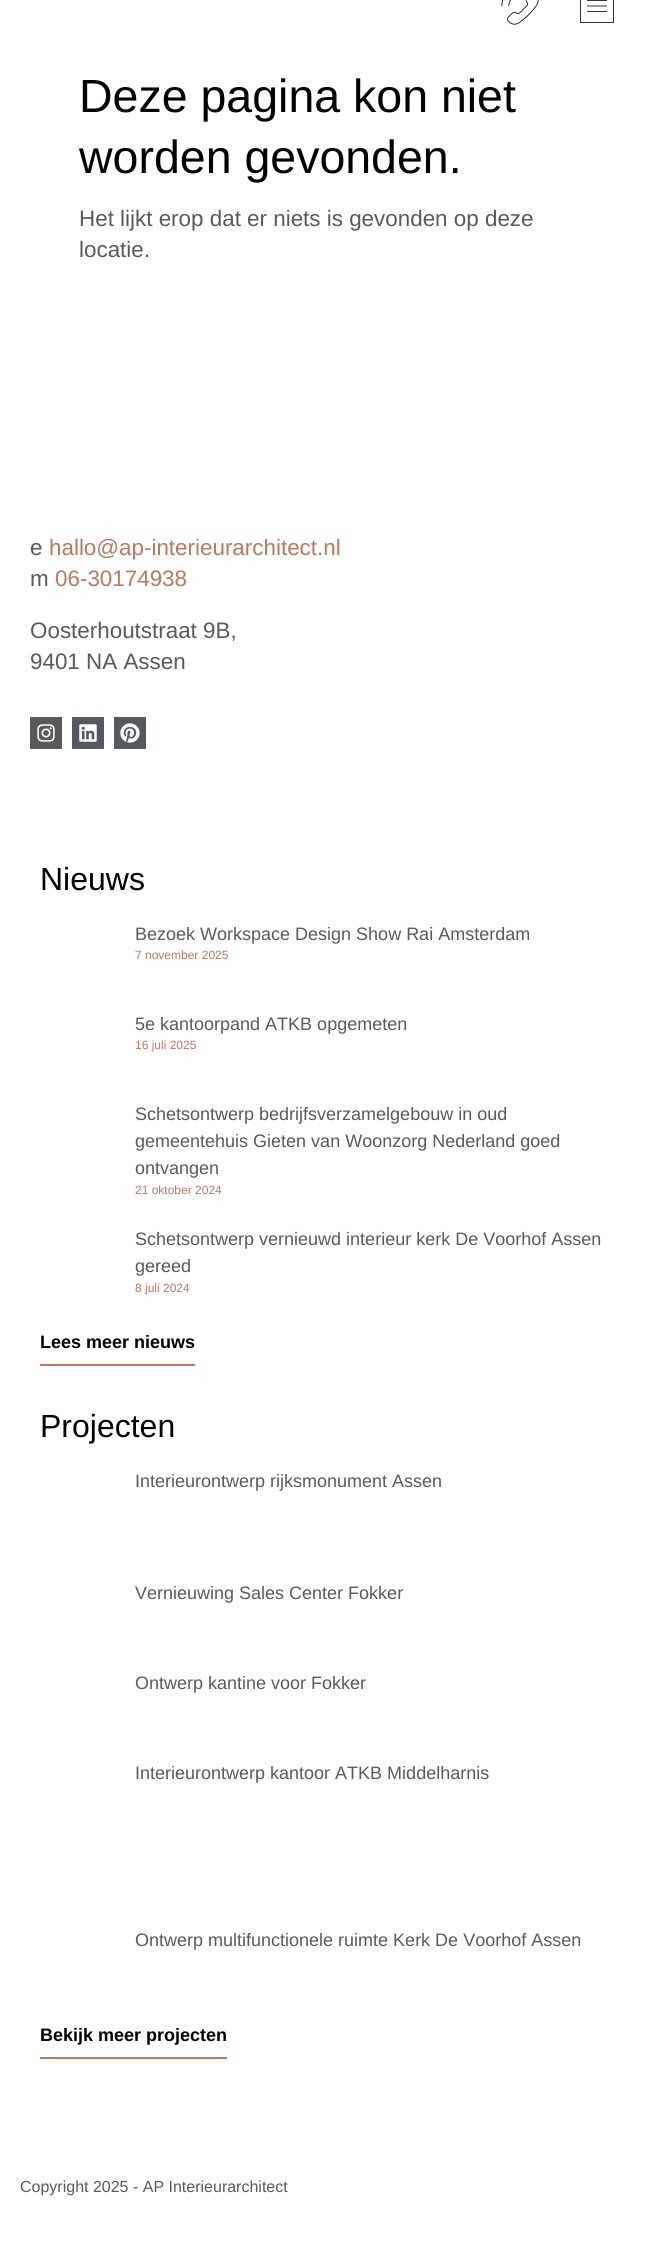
import math
import cairo

surface = cairo.ImageSurface(cairo.FORMAT_RGB24, 658, 2247)
c = cairo.Context(surface)
options = cairo.FontOptions()
options.set_hint_metrics(cairo.HINT_METRICS_OFF)
options.set_hint_style(cairo.HINT_STYLE_NONE)
c.set_font_options(options)
c.set_miter_limit(4)
def C(code):
 c.set_source_rgb(*(v / 255 for v in bytes.fromhex(code[-6:])))
def F(family, size, italic, bold):
 c.select_font_face(family, cairo.FONT_SLANT_ITALIC if italic else cairo.FONT_SLANT_NORMAL, cairo.FONT_WEIGHT_BOLD if bold else cairo.FONT_WEIGHT_NORMAL)
 c.set_font_size(size)
def T(x, y, s):
 c.move_to(x, y)
 c.show_text(s)
def R(x, y, w, h):
 c.rectangle(x, y, w, h)
 c.fill()
def I(path, x, y, w, h):
 c.save()
 c.set_source_surface(cairo.ImageSurface.create_from_png(path), x, y)
 c.rectangle(x, y, w, h)
 c.fill()
 c.restore()
C('ffffff')
c.paint()
I('1.png',501,0,38,25)
c.new_path()
c.move_to(580.5,-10.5)
c.line_to(613.5,-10.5)
c.line_to(613.5,22.5)
c.line_to(580.5,22.5)
c.close_path()
C('000000')
c.set_line_width(.8)
c.stroke()
C('333333')
R(587,0,20,1)
c.new_path()
c.move_to(587,6)
c.line_to(607,6)
C('000000')
c.stroke()
C('333333')
R(587,11,20,1)
F('Liberation Sans',46.5,0,0)
C('000000')
T(79,112,'Deze pagina kon niet')
T(79,173,'worden gevonden.')
F('Liberation Sans',22.4,0,0)
C('595959')
T(79,226,'Het lijkt erop dat er niets is gevonden op deze')
T(79,257,'locatie.')
T(30,555,'e')
C('bb7760')
T(49,555,'hallo@ap-interieurarchitect.nl')
C('595959')
T(30,586,'m')
C('bb7760')
T(55,586,'06-30174938')
C('595959')
T(30,638,'Oosterhoutstraat 9B,')
T(30,669,'9401 NA Assen')
R(30,717,32,32)
I('2.png',37,724,18,18)
C('54595f')
R(72,717,32,32)
I('3.png',79,724,18,18)
R(114,717,32,32)
I('4.png',120,723,20,20)
F('Liberation Sans',32,0,0)
C('000000')
T(40,890,'Nieuws')
F('Liberation Sans',18,0,0)
C('595959')
T(135,940,'Bezoek Workspace Design Show Rai Amsterdam')
F('Liberation Sans',12,0,0)
C('bb7760')
T(135,959,'7 november 2025')
F('Liberation Sans',18,0,0)
C('595959')
T(135,1030,'5e kantoorpand ATKB opgemeten')
F('Liberation Sans',12,0,0)
C('bb7760')
T(135,1049,'16 juli 2025')
F('Liberation Sans',18,0,0)
C('595959')
T(135,1120,'Schetsontwerp bedrijfsverzamelgebouw in oud')
T(135,1147,'gemeentehuis Gieten van Woonzorg Nederland goed')
T(135,1174,'ontvangen')
F('Liberation Sans',12,0,0)
C('bb7760')
T(135,1194,'21 oktober 2024')
F('Liberation Sans',18,0,0)
C('595959')
T(135,1245,'Schetsontwerp vernieuwd interieur kerk De Voorhof Assen')
T(135,1272,'gereed')
F('Liberation Sans',12,0,0)
C('bb7760')
T(135,1292,'8 juli 2024')
R(40,1364,155,2)
F('Liberation Sans',18,0,1)
C('000000')
T(40,1348,'Lees meer nieuws')
F('Liberation Sans',32,0,0)
T(40,1437,'Projecten')
F('Liberation Sans',18,0,0)
C('595959')
T(135,1487,'Interieurontwerp rijksmonument Assen')
T(135,1599,'Vernieuwing Sales Center Fokker')
T(135,1689,'Ontwerp kantine voor Fokker')
T(135,1779,'Interieurontwerp kantoor ATKB Middelharnis')
T(135,1946,'Ontwerp multifunctionele ruimte Kerk De Voorhof Assen')
C('bb7760')
R(40,2057,187,2)
F('Liberation Sans',18,0,1)
C('000000')
T(40,2041,'Bekijk meer projecten')
F('Liberation Sans',16,0,0)
C('595959')
T(20,2192,'Copyright 2025 - AP Interieurarchitect')
surface.write_to_png('o.png')
